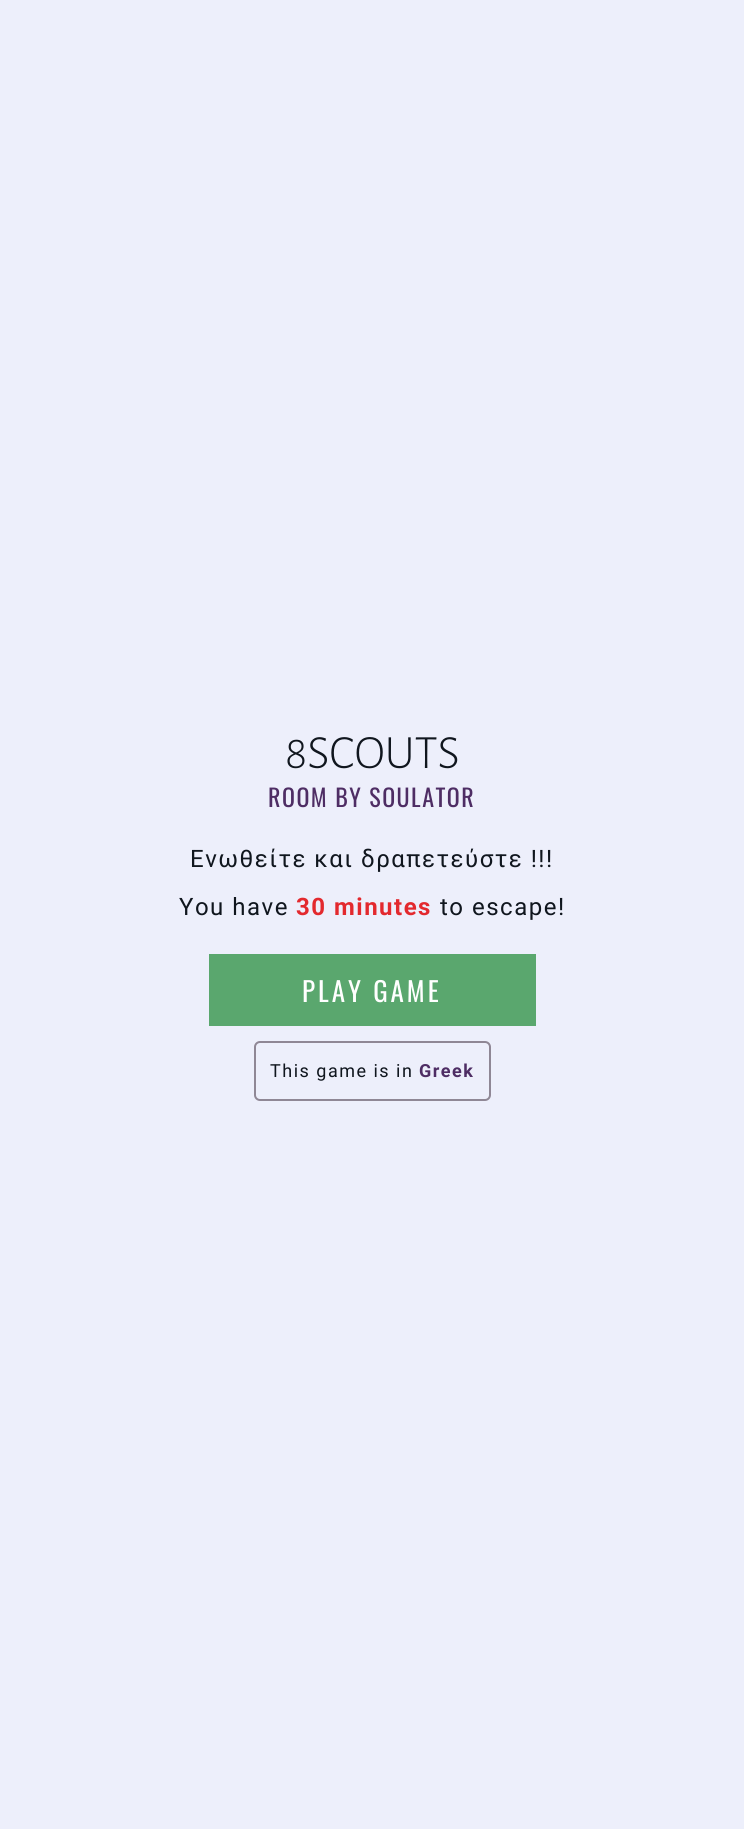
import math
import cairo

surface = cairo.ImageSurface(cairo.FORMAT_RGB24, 744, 1829)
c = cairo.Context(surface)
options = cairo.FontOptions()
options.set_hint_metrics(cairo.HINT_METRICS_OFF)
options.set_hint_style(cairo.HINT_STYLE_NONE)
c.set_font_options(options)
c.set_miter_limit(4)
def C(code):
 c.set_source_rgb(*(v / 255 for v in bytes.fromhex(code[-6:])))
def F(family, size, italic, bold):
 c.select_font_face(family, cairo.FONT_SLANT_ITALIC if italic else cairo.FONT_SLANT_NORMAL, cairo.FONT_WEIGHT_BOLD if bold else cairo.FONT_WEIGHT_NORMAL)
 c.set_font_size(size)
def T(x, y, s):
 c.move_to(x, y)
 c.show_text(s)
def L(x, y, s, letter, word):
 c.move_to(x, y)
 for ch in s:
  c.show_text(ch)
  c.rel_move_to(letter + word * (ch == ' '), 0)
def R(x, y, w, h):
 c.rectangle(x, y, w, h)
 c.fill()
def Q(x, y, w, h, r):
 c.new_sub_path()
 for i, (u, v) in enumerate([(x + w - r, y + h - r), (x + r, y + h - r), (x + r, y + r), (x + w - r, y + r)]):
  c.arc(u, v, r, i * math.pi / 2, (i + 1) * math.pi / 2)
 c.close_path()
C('edeffb')
c.paint()
F('Alegreya Sans SC Light',48,0,0)
C('10161e')
T(285,768,'8SCOUTS')
F('Oswald',24,0,0)
C('4e2d64')
L(268,807,'ROOM BY SOULATOR',1.5,0)
F('Roboto',24,0,0)
C('10161e')
L(190,867,'Ενωθείτε και δραπετεύστε !!!',1.5,0)
L(179,915,'You have',1.5,0)
F('Roboto',24,0,1)
C('e3292e')
L(296,915,'30 minutes',1.5,0)
F('Roboto',24,0,0)
C('10161e')
L(440,915,'to escape!',1.5,0)
C('5aa76e')
R(209,954,327,72)
F('Oswald',27,0,0)
C('ffffff')
L(302,1002,'PLAY GAME',3,0)
Q(255,1042,235,58,5)
C('8f8795')
c.stroke()
F('Roboto',18,0,0)
C('10161e')
L(270,1077,'This game is in',1.5,0)
F('Roboto',18,0,1)
C('4e2d64')
L(419,1077,'Greek',1.5,0)
surface.write_to_png('o.png')
